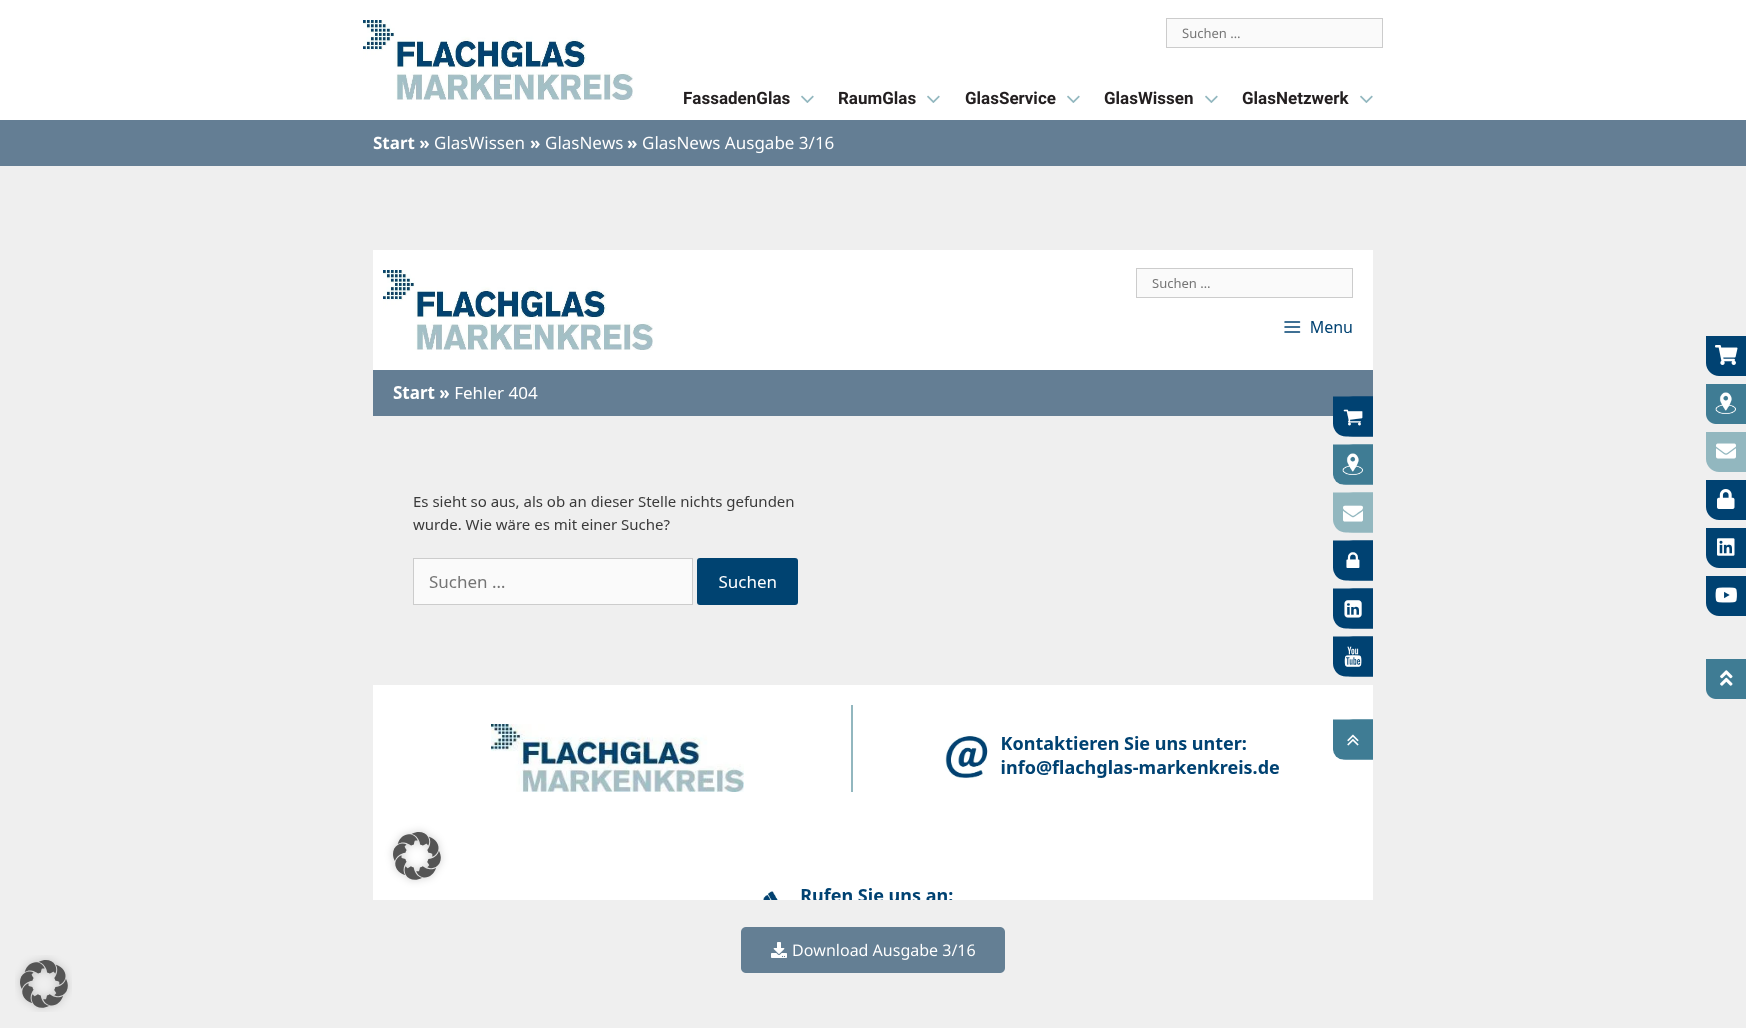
import math
import cairo

surface = cairo.ImageSurface(cairo.FORMAT_RGB24, 1746, 1028)
c = cairo.Context(surface)
options = cairo.FontOptions()
options.set_hint_metrics(cairo.HINT_METRICS_OFF)
options.set_hint_style(cairo.HINT_STYLE_NONE)
c.set_font_options(options)
c.set_miter_limit(4)
def C(code):
 c.set_source_rgb(*(v / 255 for v in bytes.fromhex(code[-6:])))
def F(family, size, italic, bold):
 c.select_font_face(family, cairo.FONT_SLANT_ITALIC if italic else cairo.FONT_SLANT_NORMAL, cairo.FONT_WEIGHT_BOLD if bold else cairo.FONT_WEIGHT_NORMAL)
 c.set_font_size(size)
def T(x, y, s):
 c.move_to(x, y)
 c.show_text(s)
def R(x, y, w, h):
 c.rectangle(x, y, w, h)
 c.fill()
def Q(x, y, w, h, r):
 c.new_sub_path()
 for i, (u, v) in enumerate([(x + w - r, y + h - r), (x + r, y + h - r), (x + r, y + r), (x + w - r, y + r)]):
  c.arc(u, v, r, i * math.pi / 2, (i + 1) * math.pi / 2)
 c.close_path()
def I(path, x, y, w, h):
 c.save()
 c.set_source_surface(cairo.ImageSurface.create_from_png(path), x, y)
 c.rectangle(x, y, w, h)
 c.fill()
 c.restore()
C('efefef')
c.paint()
C('ffffff')
R(0,0,1746,120)
C('fafafa')
c.rectangle(1166.5,18.5,216,29)
c.fill_preserve()
C('cccccc')
c.set_line_width(1)
c.stroke()
F('Noto Sans',13,0,0)
C('757575')
T(1182,38,'Suchen …')
I('1.png',363,20,270,80)
F('Roboto',17,0,1)
C('231f20')
T(683,104,'FassadenGlas')
I('2.png',801,95,13,8)
T(838,104,'RaumGlas')
I('2.png',927,95,13,8)
T(965,104,'GlasService')
I('2.png',1067,95,13,8)
T(1104,104,'GlasWissen')
I('2.png',1205,95,13,8)
T(1242,104,'GlasNetzwerk')
I('2.png',1360,95,13,8)
C('647e94')
R(0,120,1746,46)
F('Noto Sans',17,0,1)
C('ffffff')
T(373,149,'Start »')
F('Noto Sans',17,0,0)
T(434,149,'GlasWissen')
F('Noto Sans',17,0,1)
T(530,149,'»')
F('Noto Sans',17,0,0)
T(545,149,'GlasNews')
F('Noto Sans',17,0,1)
T(627,149,'»')
F('Noto Sans',17,0,0)
T(642,149,'GlasNews Ausgabe 3/16')
C('004272')
c.new_path()
c.move_to(1706,336)
c.line_to(1746,336)
c.line_to(1746,376)
c.line_to(1719,376)
c.curve_to(1712,376,1706,370,1706,363)
c.close_path()
c.fill()
I('3.png',1715,345,23,20)
C('3f7c94')
c.new_path()
c.move_to(1726,384)
c.line_to(1746,384)
c.curve_to(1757,384,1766,393,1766,404)
c.curve_to(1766,415,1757,424,1746,424)
c.line_to(1716,424)
c.curve_to(1710.5,424,1706,419.5,1706,414)
c.line_to(1706,404)
c.curve_to(1706,393,1715,384,1726,384)
c.close_path()
c.fill()
c.new_path()
c.move_to(1706,384)
c.line_to(1746,384)
c.line_to(1746,424)
c.line_to(1719,424)
c.curve_to(1712,424,1706,418,1706,411)
c.close_path()
c.fill()
I('4.png',1715,392,21,22)
C('92b7bf')
c.new_path()
c.move_to(1706,432)
c.line_to(1746,432)
c.line_to(1746,472)
c.line_to(1719,472)
c.curve_to(1712,472,1706,466,1706,459)
c.close_path()
c.fill()
I('5.png',1716,443,20,16)
C('004272')
c.new_path()
c.move_to(1706,480)
c.line_to(1746,480)
c.line_to(1746,520)
c.line_to(1719,520)
c.curve_to(1712,520,1706,514,1706,507)
c.close_path()
c.fill()
I('6.png',1717,489,18,20)
c.new_path()
c.move_to(1706,528)
c.line_to(1746,528)
c.line_to(1746,568)
c.line_to(1719,568)
c.curve_to(1712,568,1706,562,1706,555)
c.close_path()
c.fill()
I('7.png',1717,538,18,18)
c.new_path()
c.move_to(1706,576)
c.line_to(1746,576)
c.line_to(1746,616)
c.line_to(1719,616)
c.curve_to(1712,616,1706,610,1706,603)
c.close_path()
c.fill()
I('8.png',1715,587,22,16)
C('3f7c94')
c.new_path()
c.move_to(1726,659)
c.line_to(1746,659)
c.curve_to(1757,659,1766,668,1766,679)
c.curve_to(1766,690,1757,699,1746,699)
c.line_to(1716,699)
c.curve_to(1710.5,699,1706,694.5,1706,689)
c.line_to(1706,679)
c.curve_to(1706,668,1715,659,1726,659)
c.close_path()
c.fill()
c.new_path()
c.move_to(1706,659)
c.line_to(1746,659)
c.line_to(1746,699)
c.line_to(1719,699)
c.curve_to(1712,699,1706,693,1706,686)
c.close_path()
c.fill()
I('9.png',1720,670,13,16)
I('10.png',373,250,1000,650)
C('647f94')
Q(741,927,264,46,5)
c.fill()
I('11.png',771,942,16,16)
F('Noto Sans',16,0,0)
C('ffffff')
T(792,956,'Download Ausgabe 3/16')
I('12.png',15,955,57,57)
surface.write_to_png('o.png')
